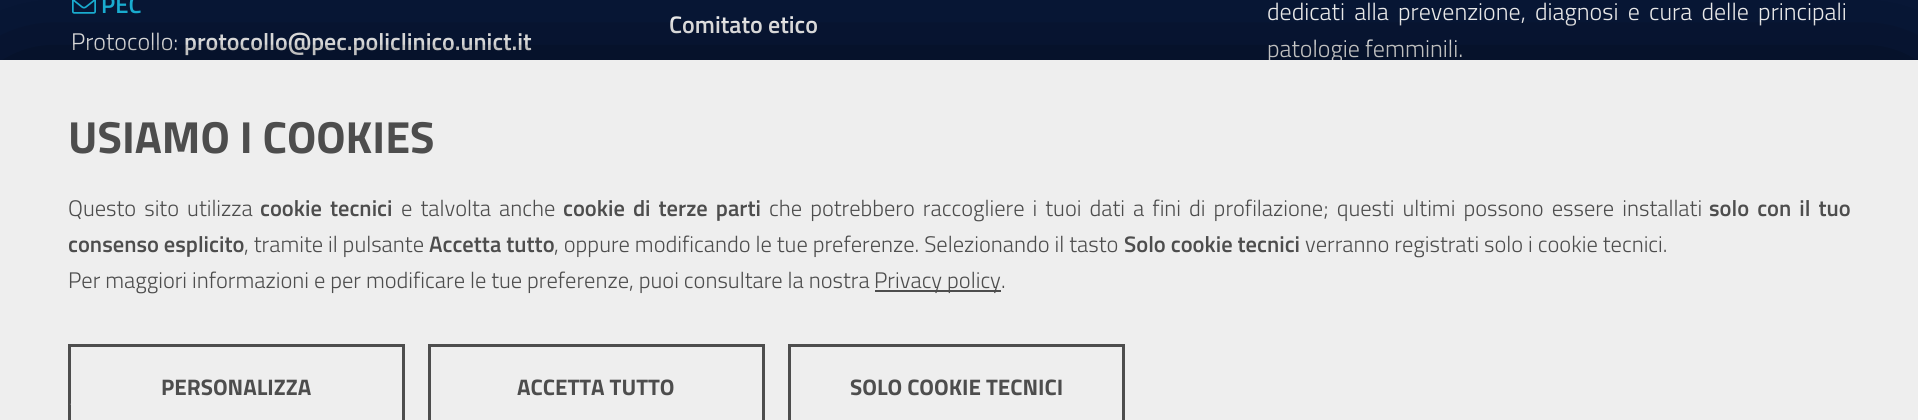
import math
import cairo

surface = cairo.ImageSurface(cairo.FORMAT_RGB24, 1918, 420)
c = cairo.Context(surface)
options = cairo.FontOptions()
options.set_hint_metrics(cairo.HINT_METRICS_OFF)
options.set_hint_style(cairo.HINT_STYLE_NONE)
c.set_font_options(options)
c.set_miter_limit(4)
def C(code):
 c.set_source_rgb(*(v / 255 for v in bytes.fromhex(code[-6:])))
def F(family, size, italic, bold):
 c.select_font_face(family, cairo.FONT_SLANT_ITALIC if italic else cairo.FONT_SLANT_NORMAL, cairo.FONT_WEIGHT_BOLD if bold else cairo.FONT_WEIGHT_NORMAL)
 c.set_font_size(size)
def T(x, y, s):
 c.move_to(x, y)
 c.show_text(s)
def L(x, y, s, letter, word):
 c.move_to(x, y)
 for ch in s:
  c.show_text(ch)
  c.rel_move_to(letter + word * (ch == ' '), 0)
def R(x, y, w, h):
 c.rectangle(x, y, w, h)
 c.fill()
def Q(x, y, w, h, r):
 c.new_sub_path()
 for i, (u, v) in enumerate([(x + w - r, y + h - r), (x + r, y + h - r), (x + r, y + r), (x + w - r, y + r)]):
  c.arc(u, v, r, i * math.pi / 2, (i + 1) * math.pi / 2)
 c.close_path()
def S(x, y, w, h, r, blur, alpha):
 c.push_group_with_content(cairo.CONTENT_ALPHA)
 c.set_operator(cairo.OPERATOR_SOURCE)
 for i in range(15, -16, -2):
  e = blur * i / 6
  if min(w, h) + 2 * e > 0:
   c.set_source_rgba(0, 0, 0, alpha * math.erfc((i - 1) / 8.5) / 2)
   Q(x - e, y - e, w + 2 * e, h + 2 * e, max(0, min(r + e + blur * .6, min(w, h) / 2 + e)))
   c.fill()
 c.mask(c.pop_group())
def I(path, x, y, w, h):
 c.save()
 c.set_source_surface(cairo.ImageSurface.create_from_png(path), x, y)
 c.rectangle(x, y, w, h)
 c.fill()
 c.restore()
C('081839')
c.paint()
I('1.png',72,0,24,14)
F('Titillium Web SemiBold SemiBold',24,0,0)
C('1bbde4')
T(101,13,'PEC')
F('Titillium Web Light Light',24,0,0)
C('ffffff')
T(71,50,'Protocollo:')
F('Titillium Web SemiBold SemiBold',24,0,0)
T(184,50,'protocollo@pec.policlinico.unict.it')
T(669,33,'Comitato etico')
F('Titillium Web Light Light',24,0,0)
L(1267,20,'dedicati alla prevenzione, diagnosi e cura delle principali',0,4)
T(1267,57,'patologie femminili.')
C('000000')
S(14,101,1891,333,0,67.5,1)
C('eeeeee')
R(0,60,1918,360)
F('Titillium Web',45,0,1)
C('4d4d4d')
T(68,153,'USIAMO I COOKIES')
F('Titillium Web Light Light',22.5,0,0)
L(68,216,'Questo sito utilizza',0,3.1)
F('Titillium Web SemiBold SemiBold',22.5,0,0)
L(260,216,'cookie tecnici',0,3.1)
F('Titillium Web Light Light',22.5,0,0)
L(401,216,'e talvolta anche',0,3.1)
F('Titillium Web SemiBold SemiBold',22.5,0,0)
L(563,216,'cookie di terze parti',0,3.1)
F('Titillium Web Light Light',22.5,0,0)
L(769,216,'che potrebbero raccogliere i tuoi dati a fini di profilazione; questi ultimi possono essere installati',0,3.1)
F('Titillium Web SemiBold SemiBold',22.5,0,0)
L(1709,216,'solo con il tuo',0,3.1)
T(68,252,'consenso esplicito')
F('Titillium Web Light Light',22.5,0,0)
T(244,252,', tramite il pulsante')
F('Titillium Web SemiBold SemiBold',22.5,0,0)
T(429,252,'Accetta tutto')
F('Titillium Web Light Light',22.5,0,0)
T(554,252,', oppure modificando le tue preferenze. Selezionando il tasto')
F('Titillium Web SemiBold SemiBold',22.5,0,0)
T(1124,252,'Solo cookie tecnici')
F('Titillium Web Light Light',22.5,0,0)
T(1305,252,'verranno registrati solo i cookie tecnici.')
T(68,288,'Per maggiori informazioni e per modificare le tue preferenze, puoi consultare la nostra')
R(875,290,126,2)
T(874,288,'Privacy policy.')
c.rectangle(69.5,345.5,334,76)
c.set_line_width(3)
c.stroke()
F('Titillium Web',22.5,0,1)
T(161,395,'PERSONALIZZA')
c.rectangle(429.5,345.5,334,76)
c.stroke()
T(517,395,'ACCETTA TUTTO')
c.rectangle(789.5,345.5,334,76)
c.stroke()
T(850,395,'SOLO COOKIE TECNICI')
c.new_path()
c.move_to(71.5,403)
c.line_to(75.5,406.5)
c.line_to(83,397)
C('eeeeee')
c.set_line_width(3.1)
c.stroke()
surface.write_to_png('o.png')
